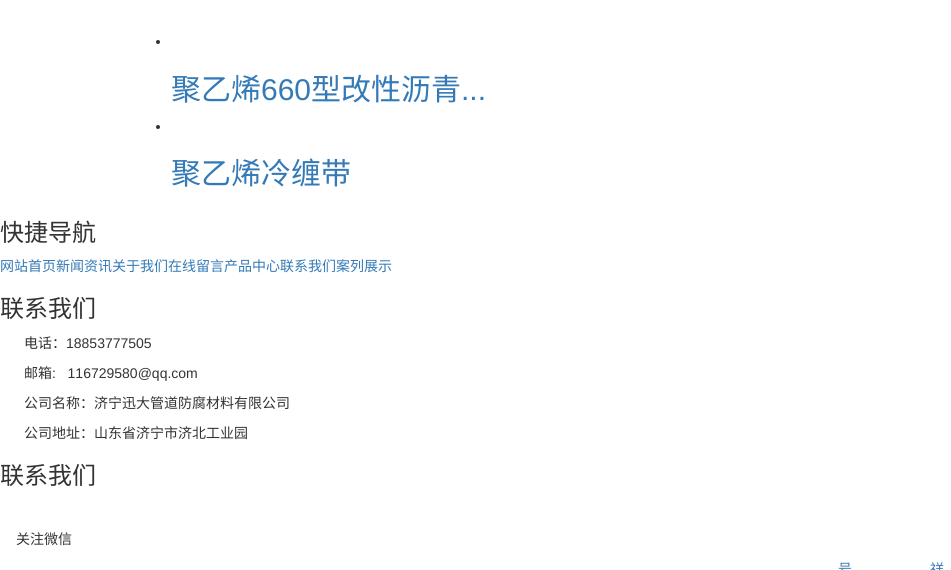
import math
import cairo

surface = cairo.ImageSurface(cairo.FORMAT_RGB24, 951, 570)
c = cairo.Context(surface)
options = cairo.FontOptions()
options.set_hint_metrics(cairo.HINT_METRICS_OFF)
options.set_hint_style(cairo.HINT_STYLE_NONE)
c.set_font_options(options)
c.set_miter_limit(4)
def C(code):
 c.set_source_rgb(*(v / 255 for v in bytes.fromhex(code[-6:])))
def F(family, size, italic, bold):
 c.select_font_face(family, cairo.FONT_SLANT_ITALIC if italic else cairo.FONT_SLANT_NORMAL, cairo.FONT_WEIGHT_BOLD if bold else cairo.FONT_WEIGHT_NORMAL)
 c.set_font_size(size)
def T(x, y, s):
 c.move_to(x, y)
 c.show_text(s)
C('ffffff')
c.paint()
C('333333')
c.arc(158,42,2,0,2 * math.pi)
c.fill()
F('Noto Sans CJK SC',30,0,0)
C('337ab7')
T(171,100,'聚乙烯')
F('Liberation Sans',30,0,0)
T(261,100,'660')
F('Noto Sans CJK SC',30,0,0)
T(311,100,'型改性沥青')
F('Liberation Sans',30,0,0)
T(461,100,'...')
C('333333')
c.new_path()
c.arc(158,127,2,0,2 * math.pi)
c.fill()
F('Noto Sans CJK SC',30,0,0)
C('337ab7')
T(171,184,'聚乙烯冷缠带')
F('Noto Sans CJK SC',24,0,0)
C('333333')
T(0,241,'快捷导航')
F('Noto Sans CJK SC',14,0,0)
C('337ab7')
T(0,271,'网站首页新闻资讯关于我们在线留言产品中心联系我们案列展示')
F('Noto Sans CJK SC',24,0,0)
C('333333')
T(0,317,'联系我们')
F('Noto Sans CJK SC',14,0,0)
T(24,348,'电话：')
F('Liberation Sans',14,0,0)
T(66,348,'18853777505')
F('Noto Sans CJK SC',14,0,0)
T(24,378,'邮箱')
F('Liberation Sans',14,0,0)
T(52,378,':   116729580@qq.com')
F('Noto Sans CJK SC',14,0,0)
T(24,408,'公司名称：济宁迅大管道防腐材料有限公司')
T(24,438,'公司地址：山东省济宁市济北工业园')
F('Noto Sans CJK SC',24,0,0)
T(0,484,'联系我们')
F('Noto Sans CJK SC',14,0,0)
T(16,544,'关注微信')
C('337ab7')
T(838,574,'号')
T(930,574,'祥')
surface.write_to_png('o.png')
